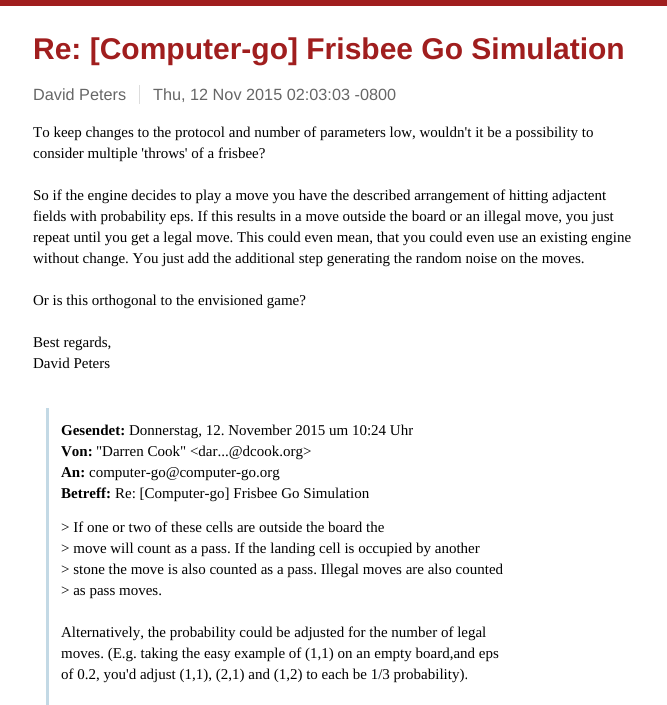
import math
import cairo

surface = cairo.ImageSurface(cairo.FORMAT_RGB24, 667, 705)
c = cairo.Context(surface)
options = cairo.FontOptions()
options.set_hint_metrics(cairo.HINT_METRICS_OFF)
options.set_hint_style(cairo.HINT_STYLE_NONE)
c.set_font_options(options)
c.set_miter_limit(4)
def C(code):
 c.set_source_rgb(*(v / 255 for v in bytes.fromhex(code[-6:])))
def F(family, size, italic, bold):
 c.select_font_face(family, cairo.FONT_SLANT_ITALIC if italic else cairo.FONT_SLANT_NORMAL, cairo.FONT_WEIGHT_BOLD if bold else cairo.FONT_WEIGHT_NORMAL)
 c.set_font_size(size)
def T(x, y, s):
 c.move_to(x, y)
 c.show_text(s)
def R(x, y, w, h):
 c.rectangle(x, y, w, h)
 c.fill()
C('ffffff')
c.paint()
C('a01e1e')
R(0,0,667,6)
F('Liberation Sans',30,0,1)
T(33,59,'Re: [Computer-go] Frisbee Go Simulation')
F('Liberation Sans',16.25,0,0)
C('666666')
T(33,100,'David Peters')
C('dddddd')
R(139,85,1,19)
C('666666')
T(153,100,'Thu, 12 Nov 2015 02:03:03 -0800')
F('Liberation Serif',15,0,0)
C('000000')
T(33,137,'To keep changes to the protocol and number of parameters low, wouldn\'t it be a possibility to')
T(33,158,'consider multiple \'throws\' of a frisbee?')
T(33,200,'So if the engine decides to play a move you have the described arrangement of hitting adjactent')
T(33,221,'fields with probability eps. If this results in a move outside the board or an illegal move, you just')
T(33,242,'repeat until you get a legal move. This could even mean, that you could even use an existing engine')
T(33,263,'without change. You just add the additional step generating the random noise on the moves.')
T(33,305,'Or is this orthogonal to the envisioned game?')
T(33,347,'Best regards,')
T(33,368,'David Peters')
C('c3d9e5')
R(46,408,3,297)
F('Liberation Serif',15,0,1)
C('000000')
T(61,435,'Gesendet:')
F('Liberation Serif',15,0,0)
T(129,435,'Donnerstag, 12. November 2015 um 10:24 Uhr')
F('Liberation Serif',15,0,1)
T(61,456,'Von:')
F('Liberation Serif',15,0,0)
T(96,456,'"Darren Cook" <dar...@dcook.org>')
F('Liberation Serif',15,0,1)
T(61,477,'An:')
F('Liberation Serif',15,0,0)
T(89,477,'computer-go@computer-go.org')
F('Liberation Serif',15,0,1)
T(61,498,'Betreff:')
F('Liberation Serif',15,0,0)
T(115,498,'Re: [Computer-go] Frisbee Go Simulation')
T(61,532,'> If one or two of these cells are outside the board the')
T(61,553,'> move will count as a pass. If the landing cell is occupied by another')
T(61,574,'> stone the move is also counted as a pass. Illegal moves are also counted')
T(61,595,'> as pass moves.')
T(61,637,'Alternatively, the probability could be adjusted for the number of legal')
T(61,658,'moves. (E.g. taking the easy example of (1,1) on an empty board,and eps')
T(61,679,'of 0.2, you\'d adjust (1,1), (2,1) and (1,2) to each be 1/3 probability).')
surface.write_to_png('o.png')
